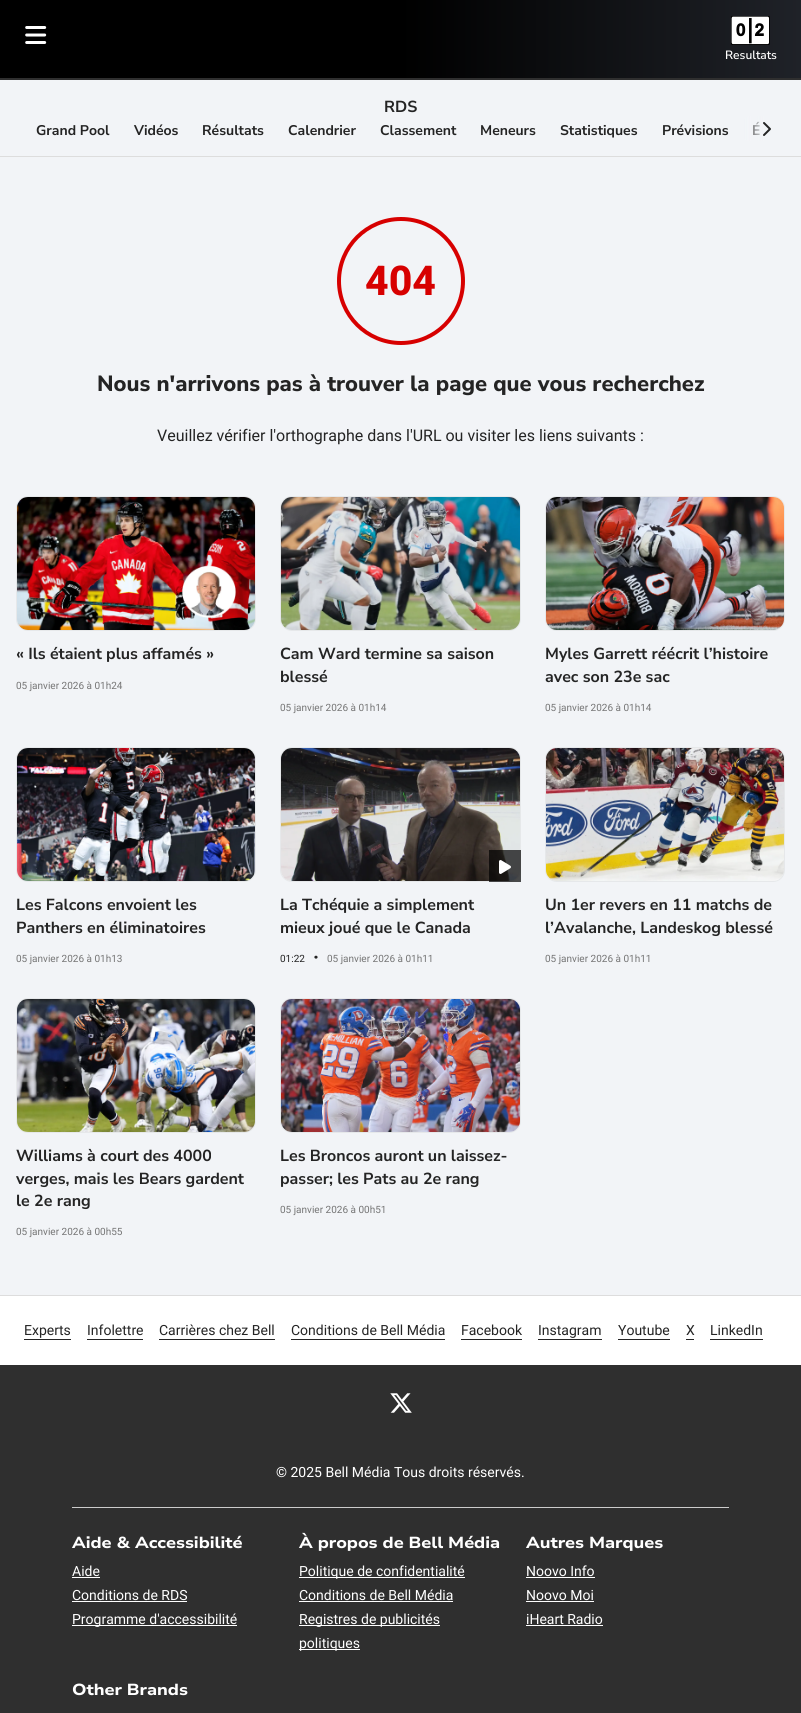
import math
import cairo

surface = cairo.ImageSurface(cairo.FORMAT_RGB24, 801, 1713)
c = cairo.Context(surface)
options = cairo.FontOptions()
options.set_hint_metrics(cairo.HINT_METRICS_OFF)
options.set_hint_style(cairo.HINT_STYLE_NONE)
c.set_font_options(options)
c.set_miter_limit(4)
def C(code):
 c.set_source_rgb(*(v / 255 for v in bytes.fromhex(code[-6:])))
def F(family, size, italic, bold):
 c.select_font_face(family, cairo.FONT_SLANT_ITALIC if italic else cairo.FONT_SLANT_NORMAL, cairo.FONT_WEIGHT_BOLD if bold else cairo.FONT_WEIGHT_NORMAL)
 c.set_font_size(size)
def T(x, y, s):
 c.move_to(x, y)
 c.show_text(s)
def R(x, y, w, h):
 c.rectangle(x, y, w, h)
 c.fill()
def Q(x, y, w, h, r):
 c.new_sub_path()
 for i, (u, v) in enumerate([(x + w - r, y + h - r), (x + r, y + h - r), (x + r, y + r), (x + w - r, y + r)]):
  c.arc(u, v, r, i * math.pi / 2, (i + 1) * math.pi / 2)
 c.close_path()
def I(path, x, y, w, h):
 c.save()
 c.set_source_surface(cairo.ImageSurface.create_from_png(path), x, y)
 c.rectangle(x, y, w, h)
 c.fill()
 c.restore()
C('f2f4f7')
c.paint()
gradient = cairo.LinearGradient(0,39,801,39)
gradient.add_color_stop_rgba(.5,0,0,0,1)
gradient.add_color_stop_rgba(1,0.122,0.133,0.157,1)
c.set_source(gradient)
R(0,0,801,78)
C('2f2f2f')
R(0,78,801,2)
I('1.png',25,26,22,18)
I('2.png',731,16,39,29)
F('Nunito Sans SemiBold',12,0,0)
C('ffffff')
T(725,59,'Resultats')
F('Nunito Sans',16,0,1)
C('242424')
T(384,112,'RDS')
F('Nunito Sans',14,0,1)
T(36,135,'Grand Pool')
T(134,135,'Vidéos')
T(202,135,'Résultats')
T(288,135,'Calendrier')
T(380,135,'Classement')
T(480,135,'Meneurs')
T(560,135,'Statistiques')
T(662,135,'Prévisions')
T(752,135,'É')
c.save()
c.rectangle(12,116,777,25)
c.clip()
gradient = cairo.LinearGradient(790,129,742,129)
gradient.add_color_stop_rgba(.5,0.949,0.957,0.969,1)
gradient.add_color_stop_rgba(1,0.949,0.957,0.969,0)
c.set_source(gradient)
Q(742,116,48,25,8)
c.fill()
c.restore()
I('3.png',763,122,8,14)
C('dddddd')
R(0,156,801,1)
c.arc(401,281,62,0,2 * math.pi)
C('d70000')
c.set_line_width(4)
c.stroke()
F('Roboto ExtraBold',41,0,0)
T(365,295,'404')
F('Nunito Sans ExtraBold',22,0,0)
C('242424')
T(97,391,'Nous n\'arrivons pas à trouver la page que vous recherchez')
F('Roboto',16,0,0)
T(157,441,'Veuillez vérifier l\'orthographe dans l\'URL ou visiter les liens suivants :')
Q(16.5,496.5,239,134,11.5)
C('e6e8ea')
c.set_line_width(1)
c.stroke()
I('4.png',17,497,238,133)
F('Nunito Sans',16,0,1)
C('242424')
T(16,659,'« Ils étaient plus affamés »')
F('Roboto',10,0,0)
C('757575')
T(16,689,'05 janvier 2026 à 01h24')
Q(280.5,496.5,240,134,11.5)
C('e6e8ea')
c.stroke()
I('5.png',281,497,239,133)
F('Nunito Sans',16,0,1)
C('242424')
T(280,659,'Cam Ward termine sa saison')
T(280,682,'blessé')
F('Roboto',10,0,0)
C('757575')
T(280,711,'05 janvier 2026 à 01h14')
Q(545.5,496.5,239,134,11.5)
C('e6e8ea')
c.stroke()
I('6.png',546,497,238,133)
F('Nunito Sans',16,0,1)
C('242424')
T(545,659,'Myles Garrett réécrit l’histoire')
T(545,682,'avec son 23e sac')
F('Roboto',10,0,0)
C('757575')
T(545,711,'05 janvier 2026 à 01h14')
Q(16.5,747.5,239,134,11.5)
C('e6e8ea')
c.stroke()
I('7.png',17,748,238,133)
F('Nunito Sans',16,0,1)
C('242424')
T(16,910,'Les Falcons envoient les')
T(16,933,'Panthers en éliminatoires')
F('Roboto',10,0,0)
C('757575')
T(16,962,'05 janvier 2026 à 01h13')
Q(280.5,747.5,240,134,11.5)
C('e6e8ea')
c.stroke()
I('8.png',281,748,239,133)
c.set_source_rgba(0,0,0,0.7)
R(489,850,32,32)
I('9.png',499,860,12,14)
F('Nunito Sans',16,0,1)
C('242424')
T(280,910,'La Tchéquie a simplement')
T(280,933,'mieux joué que le Canada')
F('Roboto',10,0,0)
T(280,962,'01:22')
F('Roboto',20,0,1)
T(313,964,'·')
F('Roboto',10,0,0)
C('757575')
T(327,962,'05 janvier 2026 à 01h11')
Q(545.5,747.5,239,134,11.5)
C('e6e8ea')
c.stroke()
I('10.png',546,748,238,133)
F('Nunito Sans',16,0,1)
C('242424')
T(545,910,'Un 1er revers en 11 matchs de')
T(545,933,'l’Avalanche, Landeskog blessé')
F('Roboto',10,0,0)
C('757575')
T(545,962,'05 janvier 2026 à 01h11')
Q(16.5,998.5,239,134,11.5)
C('e6e8ea')
c.stroke()
I('11.png',17,999,238,133)
F('Nunito Sans',16,0,1)
C('242424')
T(16,1161,'Williams à court des 4000')
T(16,1184,'verges, mais les Bears gardent')
T(16,1206,'le 2e rang')
F('Roboto',10,0,0)
C('757575')
T(16,1235,'05 janvier 2026 à 00h55')
Q(280.5,998.5,240,134,11.5)
C('e6e8ea')
c.stroke()
I('12.png',281,999,239,133)
F('Nunito Sans',16,0,1)
C('242424')
T(280,1161,'Les Broncos auront un laissez-')
T(280,1184,'passer; les Pats au 2e rang')
F('Roboto',10,0,0)
C('757575')
T(280,1213,'05 janvier 2026 à 00h51')
C('2f2f2f')
R(0,1365,801,348)
C('ffffff')
R(0,1296,801,69)
C('dddddd')
R(0,1295,801,1)
F('Roboto',14,0,0)
C('242424')
T(24,1335,'Experts')
R(24,1339,47,1)
T(87,1335,'Infolettre')
R(87,1339,56,1)
T(159,1335,'Carrières chez Bell')
R(159,1339,116,1)
T(291,1335,'Conditions de Bell Média')
R(291,1339,154,1)
T(461,1335,'Facebook')
R(461,1339,61,1)
T(538,1335,'Instagram')
R(538,1339,64,1)
T(618,1335,'Youtube')
R(618,1339,52,1)
T(686,1335,'X')
R(686,1339,8,1)
T(710,1335,'LinkedIn')
R(710,1339,53,1)
C('cccccc')
R(72,1507,657,1)
I('13.png',390,1393,22,20)
C('ffffff')
T(276,1477,'© 2025 Bell Média Tous droits réservés.')
F('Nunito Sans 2 ExtraBold',16,0,0)
T(72,1548,'Aide & Accessibilité')
F('Roboto',14,0,0)
T(72,1576,'Aide')
R(72,1577,28,1)
T(72,1600,'Conditions de RDS')
R(72,1601,115,1)
R(72,1625,165,1)
T(72,1624,'Programme d\'accessibilité')
F('Nunito Sans 2 ExtraBold',16,0,0)
T(299,1548,'À propos de Bell Média')
R(299,1577,166,1)
F('Roboto',14,0,0)
T(299,1576,'Politique de confidentialité')
T(299,1600,'Conditions de Bell Média')
R(299,1601,154,1)
R(299,1625,141,1)
T(299,1624,'Registres de publicités')
R(299,1649,61,1)
T(299,1648,'politiques')
F('Nunito Sans 2 ExtraBold',16,0,0)
T(526,1548,'Autres Marques')
F('Roboto',14,0,0)
T(526,1576,'Noovo Info')
R(526,1577,69,1)
T(526,1600,'Noovo Moi')
R(526,1601,68,1)
T(526,1624,'iHeart Radio')
R(526,1625,77,1)
F('Nunito Sans 2 ExtraBold',16,0,0)
T(72,1695,'Other Brands')
surface.write_to_png('o.png')
